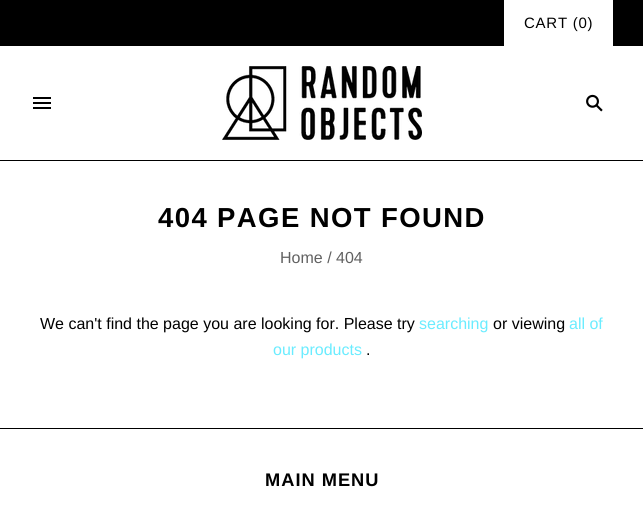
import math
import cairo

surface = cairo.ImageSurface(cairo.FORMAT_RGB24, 643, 505)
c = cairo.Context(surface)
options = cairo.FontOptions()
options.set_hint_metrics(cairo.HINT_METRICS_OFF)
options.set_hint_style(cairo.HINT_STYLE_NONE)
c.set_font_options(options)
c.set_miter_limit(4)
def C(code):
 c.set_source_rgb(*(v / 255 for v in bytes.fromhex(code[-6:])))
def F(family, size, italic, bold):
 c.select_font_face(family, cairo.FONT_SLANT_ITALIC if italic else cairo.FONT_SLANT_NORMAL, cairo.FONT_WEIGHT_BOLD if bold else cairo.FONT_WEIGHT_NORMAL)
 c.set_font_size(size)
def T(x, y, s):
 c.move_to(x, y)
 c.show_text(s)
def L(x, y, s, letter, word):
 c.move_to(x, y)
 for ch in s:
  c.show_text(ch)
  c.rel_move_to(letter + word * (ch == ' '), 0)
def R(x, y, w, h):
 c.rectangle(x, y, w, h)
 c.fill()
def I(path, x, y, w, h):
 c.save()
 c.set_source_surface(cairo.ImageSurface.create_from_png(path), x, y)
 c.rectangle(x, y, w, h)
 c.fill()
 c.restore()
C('ffffff')
c.paint()
C('000000')
R(0,160,643,1)
R(0,0,643,46)
C('ffffff')
R(504,0,109,46)
F('Liberation Sans',15,0,0)
C('000000')
L(524,28,'CART (0)',.75,0)
I('1.png',33,97,18,12)
I('2.png',222,66,200,74)
I('3.png',586,94,17,18)
F('Liberation Sans',27.5,0,1)
L(158,227,'404 PAGE NOT FOUND',1.4,0)
F('Liberation Sans',16,0,0)
C('616161')
T(280,263,'Home / 404')
C('000000')
T(40,329,'We can\'t find the page you are looking for. Please try')
C('6aecff')
T(419,329,'searching')
C('000000')
T(493,329,'or viewing')
C('6aecff')
T(569,329,'all of')
T(273,355,'our products')
C('000000')
T(366,355,'.')
R(0,428,643,1)
F('Liberation Sans',18.25,0,1)
L(265,486,'MAIN MENU',1,0)
surface.write_to_png('o.png')
